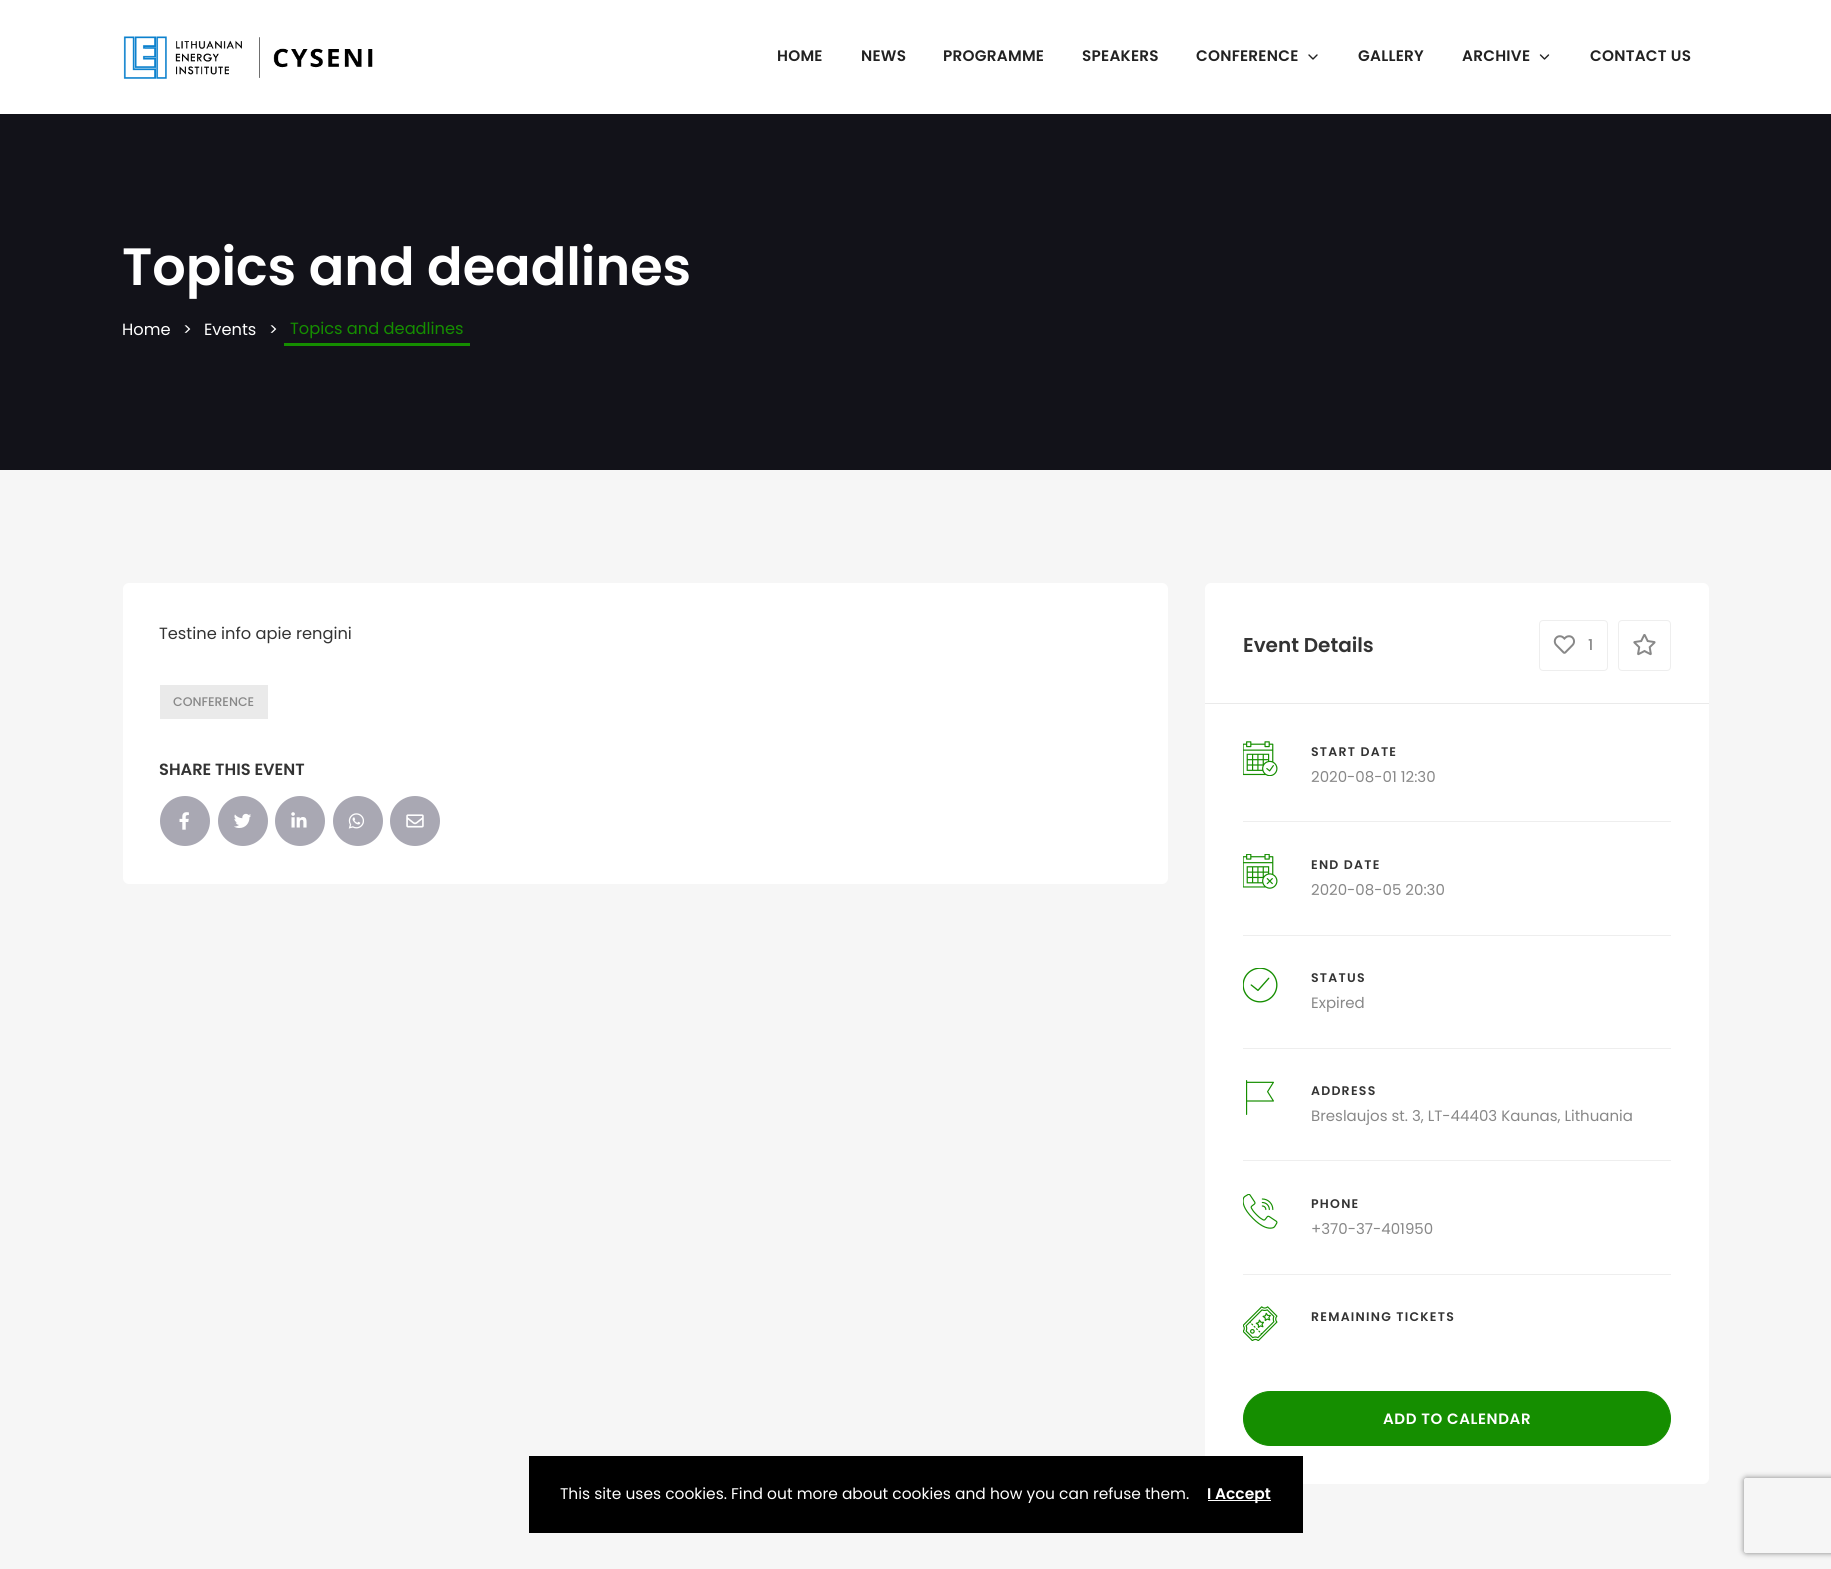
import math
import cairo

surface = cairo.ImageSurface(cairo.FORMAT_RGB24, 1831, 1569)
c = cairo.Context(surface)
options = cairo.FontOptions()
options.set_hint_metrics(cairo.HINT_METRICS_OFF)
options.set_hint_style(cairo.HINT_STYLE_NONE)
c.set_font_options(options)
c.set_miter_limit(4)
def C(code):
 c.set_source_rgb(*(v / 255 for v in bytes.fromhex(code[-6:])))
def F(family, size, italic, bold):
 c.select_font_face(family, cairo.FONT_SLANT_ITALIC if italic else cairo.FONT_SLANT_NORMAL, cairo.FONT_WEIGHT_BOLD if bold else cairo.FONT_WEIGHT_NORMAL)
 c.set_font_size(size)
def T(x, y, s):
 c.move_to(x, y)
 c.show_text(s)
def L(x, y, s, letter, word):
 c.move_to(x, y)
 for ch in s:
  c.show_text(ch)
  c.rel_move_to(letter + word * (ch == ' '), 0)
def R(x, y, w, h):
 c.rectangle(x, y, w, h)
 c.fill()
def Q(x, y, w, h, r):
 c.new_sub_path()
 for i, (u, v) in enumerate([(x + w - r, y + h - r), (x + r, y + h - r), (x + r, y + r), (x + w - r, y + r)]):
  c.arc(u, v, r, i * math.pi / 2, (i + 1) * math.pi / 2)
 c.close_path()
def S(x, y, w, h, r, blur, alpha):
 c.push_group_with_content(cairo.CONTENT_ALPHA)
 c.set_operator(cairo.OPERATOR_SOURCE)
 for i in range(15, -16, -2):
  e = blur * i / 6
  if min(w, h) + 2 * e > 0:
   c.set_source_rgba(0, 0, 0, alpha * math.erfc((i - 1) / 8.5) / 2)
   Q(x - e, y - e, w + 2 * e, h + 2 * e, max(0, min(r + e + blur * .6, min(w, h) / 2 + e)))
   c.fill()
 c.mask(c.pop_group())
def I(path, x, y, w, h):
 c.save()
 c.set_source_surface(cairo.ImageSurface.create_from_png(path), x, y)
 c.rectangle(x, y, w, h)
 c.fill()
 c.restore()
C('f6f6f6')
c.paint()
C('ffffff')
R(0,0,1831,114)
I('1.png',123,36,250,43)
F('Poppins SemiBold',15.25,0,0)
C('222222')
L(777,61,'HOME',.25,0)
L(861,61,'NEWS',.25,0)
L(943,61,'PROGRAMME',.25,0)
L(1082,61,'SPEAKERS',.25,0)
L(1196,61,'CONFERENCE',.25,0)
c.new_path()
c.move_to(1309,55)
c.line_to(1313,59)
c.line_to(1317,55)
c.set_line_width(1.4)
c.set_line_cap(cairo.LINE_CAP_ROUND)
c.set_line_join(cairo.LINE_JOIN_ROUND)
c.stroke()
L(1358,61,'GALLERY',.25,0)
L(1462,61,'ARCHIVE',.25,0)
c.new_path()
c.move_to(1540.5,55)
c.line_to(1544.5,59)
c.line_to(1548.5,55)
c.stroke()
L(1590,61,'CONTACT US',.25,0)
C('121219')
R(0,114,1831,356)
F('Poppins SemiBold',52.5,0,0)
C('ffffff')
T(122,285,'Topics and deadlines')
F('Poppins',16.25,0,0)
T(122,335,'Home')
T(183,335,'>')
T(204,335,'Events')
T(269,335,'>')
C('158e00')
R(284,343,186,3)
T(290,334,'Topics and deadlines')
C('ffffff')
Q(123,583,1045,301,6)
c.fill()
C('333333')
T(159,639,'Testine info apie rengini')
C('eaeaea')
R(160,685,108,34)
F('Poppins Medium',12.5,0,0)
C('888888')
T(173,706,'CONFERENCE')
F('Poppins SemiBold',16.25,0,0)
C('333333')
T(159,775,'SHARE THIS EVENT')
C('a9a8b3')
c.new_path()
c.arc(185,821,25,0,2 * math.pi)
c.fill()
I('2.png',179,812,10,18)
c.arc(243,821,25,0,2 * math.pi)
c.fill()
I('3.png',234,813,17,15)
c.arc(300,821,25,0,2 * math.pi)
c.fill()
I('4.png',291,812,16,16)
c.arc(358,821,25,0,2 * math.pi)
c.fill()
I('5.png',348,813,16,16)
c.arc(415,821,25,0,2 * math.pi)
c.fill()
I('6.png',406,814,18,14)
C('ffffff')
Q(1205,583,504,901,6)
c.fill()
C('eaeaea')
R(1205,703,504,1)
F('Poppins SemiBold',20,0,0)
C('333333')
T(1243,652,'Event Details')
Q(1539.5,620.5,68,50,3.5)
C('eeeeee')
c.set_line_width(1)
c.set_line_cap(cairo.LINE_CAP_BUTT)
c.set_line_join(cairo.LINE_JOIN_MITER)
c.stroke()
I('7.png',1553,635,22,19)
F('Poppins Medium',15,0,0)
C('888888')
T(1588,650,'1')
Q(1618.5,620.5,52,50,3.5)
C('eeeeee')
c.stroke()
I('8.png',1633,634,23,22)
R(1243,821,428,1)
I('9.png',1243,741,35,35)
F('Poppins SemiBold',12.5,0,0)
C('333333')
L(1311,756,'START DATE',1.25,0)
F('Poppins',15,0,0)
C('888888')
T(1311,782,'2020-08-01 12:30')
C('eeeeee')
R(1243,935,428,1)
I('10.png',1243,854,35,35)
F('Poppins SemiBold',12.5,0,0)
C('333333')
L(1311,869,'END DATE',1.25,0)
F('Poppins',15,0,0)
C('888888')
T(1311,895,'2020-08-05 20:30')
C('eeeeee')
R(1243,1048,428,1)
I('11.png',1243,968,35,35)
F('Poppins SemiBold',12.5,0,0)
C('333333')
L(1311,982,'STATUS',1.25,0)
F('Poppins',15,0,0)
C('888888')
T(1311,1008,'Expired')
C('eeeeee')
R(1243,1160,428,1)
I('12.png',1246,1080,28,35)
F('Poppins SemiBold',12.5,0,0)
C('333333')
L(1311,1095,'ADDRESS',1.25,0)
F('Poppins',15,0,0)
C('888888')
T(1311,1121,'Breslaujos st. 3, LT-44403 Kaunas, Lithuania')
C('eeeeee')
R(1243,1274,428,1)
I('13.png',1243,1194,35,35)
F('Poppins SemiBold',12.5,0,0)
C('333333')
L(1311,1208,'PHONE',1.25,0)
F('Poppins',15,0,0)
C('888888')
T(1311,1234,'+370-37-401950')
I('14.png',1243,1306,35,35)
F('Poppins SemiBold',12.5,0,0)
C('333333')
L(1311,1321,'REMAINING TICKETS',1.25,0)
C('158e00')
Q(1243.5,1391.5,427,54,27)
c.fill_preserve()
c.stroke()
F('Poppins SemiBold',15,0,0)
C('ffffff')
L(1383,1424,'ADD TO CALENDAR',.6,0)
C('000000')
R(529,1456,774,77)
F('Poppins',15.45,0,0)
C('ffffff')
T(560,1499,'This site uses cookies. Find out more about cookies and how you can refuse them.')
R(1208,1500,63,1)
F('Poppins SemiBold',15.45,0,0)
T(1207,1499,'I Accept')
c.save()
c.set_fill_rule(cairo.FILL_RULE_EVEN_ODD)
c.new_path()
c.move_to(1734,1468)
c.line_to(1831,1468)
c.line_to(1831,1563)
c.line_to(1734,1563)
c.close_path()
c.move_to(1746.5,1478)
c.line_to(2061.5,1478)
c.curve_to(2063,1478,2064,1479,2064,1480.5)
c.line_to(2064,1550.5)
c.curve_to(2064,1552,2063,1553,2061.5,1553)
c.line_to(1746.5,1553)
c.curve_to(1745,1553,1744,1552,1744,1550.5)
c.line_to(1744,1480.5)
c.curve_to(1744,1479,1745,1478,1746.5,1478)
c.close_path()
c.clip()
C('808080')
S(1744,1478,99,75,2.5,3,1)
c.restore()
surface.write_to_png('o.png')
